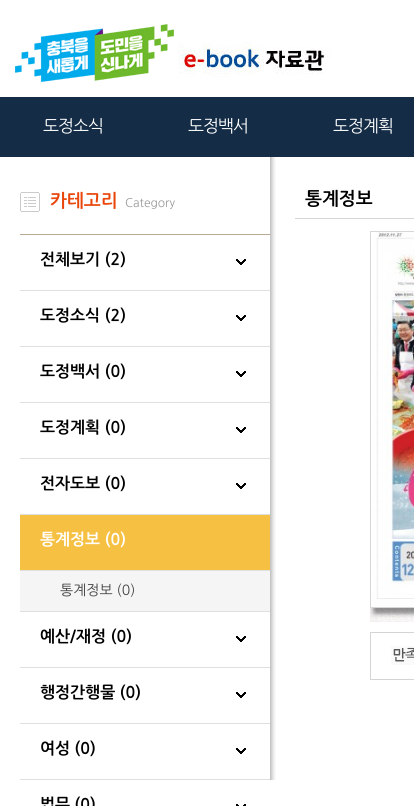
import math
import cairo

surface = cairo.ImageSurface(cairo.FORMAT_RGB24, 414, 806)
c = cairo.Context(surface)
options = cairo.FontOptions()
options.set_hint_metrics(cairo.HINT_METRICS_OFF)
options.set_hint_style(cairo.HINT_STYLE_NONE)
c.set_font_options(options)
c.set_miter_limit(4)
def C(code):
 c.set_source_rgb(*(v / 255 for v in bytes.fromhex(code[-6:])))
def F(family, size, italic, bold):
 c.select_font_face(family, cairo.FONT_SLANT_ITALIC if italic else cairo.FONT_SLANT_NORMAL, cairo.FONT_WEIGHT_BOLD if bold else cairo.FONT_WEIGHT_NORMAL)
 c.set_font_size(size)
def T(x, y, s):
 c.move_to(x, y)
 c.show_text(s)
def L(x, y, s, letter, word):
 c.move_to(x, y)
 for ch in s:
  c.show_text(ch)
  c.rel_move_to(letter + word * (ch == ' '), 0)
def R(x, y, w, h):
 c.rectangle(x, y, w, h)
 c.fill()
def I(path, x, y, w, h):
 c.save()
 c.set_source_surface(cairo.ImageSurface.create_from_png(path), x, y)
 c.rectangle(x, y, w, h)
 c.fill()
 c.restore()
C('ffffff')
c.paint()
I('1.png',15,24,316,58)
C('142c46')
R(0,97,414,60)
F('NanumGothic',17,0,0)
C('ffffff')
L(43,132,'도정소식',-1,0)
L(188,132,'도정백서',-1,0)
L(333,132,'도정계획',-1,0)
C('b7a994')
R(20,234,250,1)
I('2.png',20,192,20,20)
F('NanumGothic',18,0,1)
C('e9460b')
T(50,207,'카테고리')
F('NanumGothic',12,0,0)
C('999999')
T(125,207,'Category')
I('3.png',236,259,10,6)
C('dfdfdf')
R(20,290,250,1)
F('NanumGothic',16,0,1)
C('000000')
T(40,265,'전체보기 (2)')
I('3.png',236,315,10,6)
C('dfdfdf')
R(20,346,250,1)
C('000000')
T(40,321,'도정소식 (2)')
I('3.png',236,371,10,6)
C('dfdfdf')
R(20,402,250,1)
C('000000')
T(40,377,'도정백서 (0)')
I('3.png',236,427,10,6)
C('dfdfdf')
R(20,458,250,1)
C('000000')
T(40,433,'도정계획 (0)')
I('3.png',236,483,10,6)
C('dfdfdf')
R(20,514,250,1)
C('000000')
T(40,489,'전자도보 (0)')
C('f6c043')
R(20,515,250,55)
C('dfdfdf')
R(20,570,250,1)
C('ffffff')
T(40,545,'통계정보 (0)')
C('dfdfdf')
R(20,611,250,1)
C('f5f5f5')
R(20,571,250,40)
F('NanumGothic',14,0,0)
C('3f3f3f')
T(60,595,'통계정보 (0)')
I('3.png',236,636,10,6)
C('dfdfdf')
R(20,667,250,1)
F('NanumGothic',16,0,1)
C('000000')
T(40,642,'예산/재정 (0)')
I('3.png',236,692,10,6)
C('dfdfdf')
R(20,723,250,1)
C('000000')
T(40,698,'행정간행물 (0)')
I('3.png',236,748,10,6)
C('dfdfdf')
R(20,779,250,1)
C('000000')
T(40,754,'여성 (0)')
I('4.png',236,804,10,2)
T(40,810,'법무 (0)')
I('5.png',270,157,6,623)
F('NanumGothic',18,0,1)
T(305,205,'통계정보')
C('d6d6d6')
R(295,218,119,1)
I('6.png',370,608,44,14)
c.rectangle(370.5,231.5,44,376)
c.set_line_width(1)
c.stroke()
I('7.png',371,232,43,375)
c.rectangle(370.5,632.5,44,47)
C('d4d4d4')
c.stroke()
I('8.png',391,646,23,19)
surface.write_to_png('o.png')
